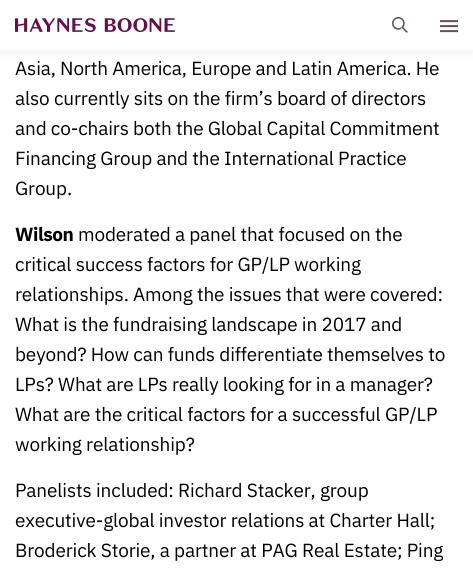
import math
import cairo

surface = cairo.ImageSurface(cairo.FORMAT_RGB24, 473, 575)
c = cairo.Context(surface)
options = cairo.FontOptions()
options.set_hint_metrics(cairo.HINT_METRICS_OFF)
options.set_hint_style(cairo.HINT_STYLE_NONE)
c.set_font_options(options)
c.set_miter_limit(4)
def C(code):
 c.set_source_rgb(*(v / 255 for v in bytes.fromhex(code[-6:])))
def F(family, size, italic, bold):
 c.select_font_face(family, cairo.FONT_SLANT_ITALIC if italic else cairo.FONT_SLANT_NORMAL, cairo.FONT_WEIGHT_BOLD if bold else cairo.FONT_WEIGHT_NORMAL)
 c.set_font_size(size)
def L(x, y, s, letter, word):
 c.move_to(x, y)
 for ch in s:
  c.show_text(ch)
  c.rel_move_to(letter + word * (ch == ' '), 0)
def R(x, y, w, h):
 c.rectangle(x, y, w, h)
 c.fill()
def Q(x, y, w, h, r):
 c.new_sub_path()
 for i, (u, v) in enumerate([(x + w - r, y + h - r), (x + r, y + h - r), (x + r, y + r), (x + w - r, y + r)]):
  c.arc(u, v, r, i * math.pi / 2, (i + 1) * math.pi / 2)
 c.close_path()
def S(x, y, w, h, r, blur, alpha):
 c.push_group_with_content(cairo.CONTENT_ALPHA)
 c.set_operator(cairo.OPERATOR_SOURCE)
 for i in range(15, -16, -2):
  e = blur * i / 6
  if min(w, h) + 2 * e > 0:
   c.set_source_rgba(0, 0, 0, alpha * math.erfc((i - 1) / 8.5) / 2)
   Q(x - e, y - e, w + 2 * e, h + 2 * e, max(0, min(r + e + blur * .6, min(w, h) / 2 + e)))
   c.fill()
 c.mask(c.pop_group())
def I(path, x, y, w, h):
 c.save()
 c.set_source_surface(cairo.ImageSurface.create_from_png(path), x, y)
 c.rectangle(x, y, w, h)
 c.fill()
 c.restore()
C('ffffff')
c.paint()
C('5f5252')
S(0,2,473,50,0,5,.1)
C('ffffff')
R(0,0,473,50)
I('1.png',15,18,160,15)
I('2.png',392,17,16,16)
I('3.png',440,20,18,13)
F('IBM Plex Sans',19,0,0)
C('000000')
L(15,75,'Asia, North America, Europe and Latin America. He',-.15,0)
L(15,105,'also currently sits on the firm’s board of directors',-.15,0)
L(15,135,'and co-chairs both the Global Capital Commitment',-.15,0)
L(15,165,'Financing Group and the International Practice',-.15,0)
L(15,195,'Group.',-.15,0)
F('IBM Plex Sans',19,0,1)
L(15,241,'Wilson',-.5,0)
F('IBM Plex Sans',19,0,0)
L(78,241,'moderated a panel that focused on the',-.15,0)
L(15,271,'critical success factors for GP/LP working',-.15,0)
L(15,301,'relationships. Among the issues that were covered:',-.15,0)
L(15,331,'What is the fundraising landscape in 2017 and',-.15,0)
L(15,361,'beyond? How can funds differentiate themselves to',-.15,0)
L(15,391,'LPs? What are LPs really looking for in a manager?',-.15,0)
L(15,421,'What are the critical factors for a successful GP/LP',-.15,0)
L(15,451,'working relationship?',-.15,0)
L(15,497,'Panelists included: Richard Stacker, group',-.15,0)
L(15,527,'executive-global investor relations at Charter Hall;',-.15,0)
L(15,557,'Broderick Storie, a partner at PAG Real Estate; Ping',-.15,0)
surface.write_to_png('o.png')
